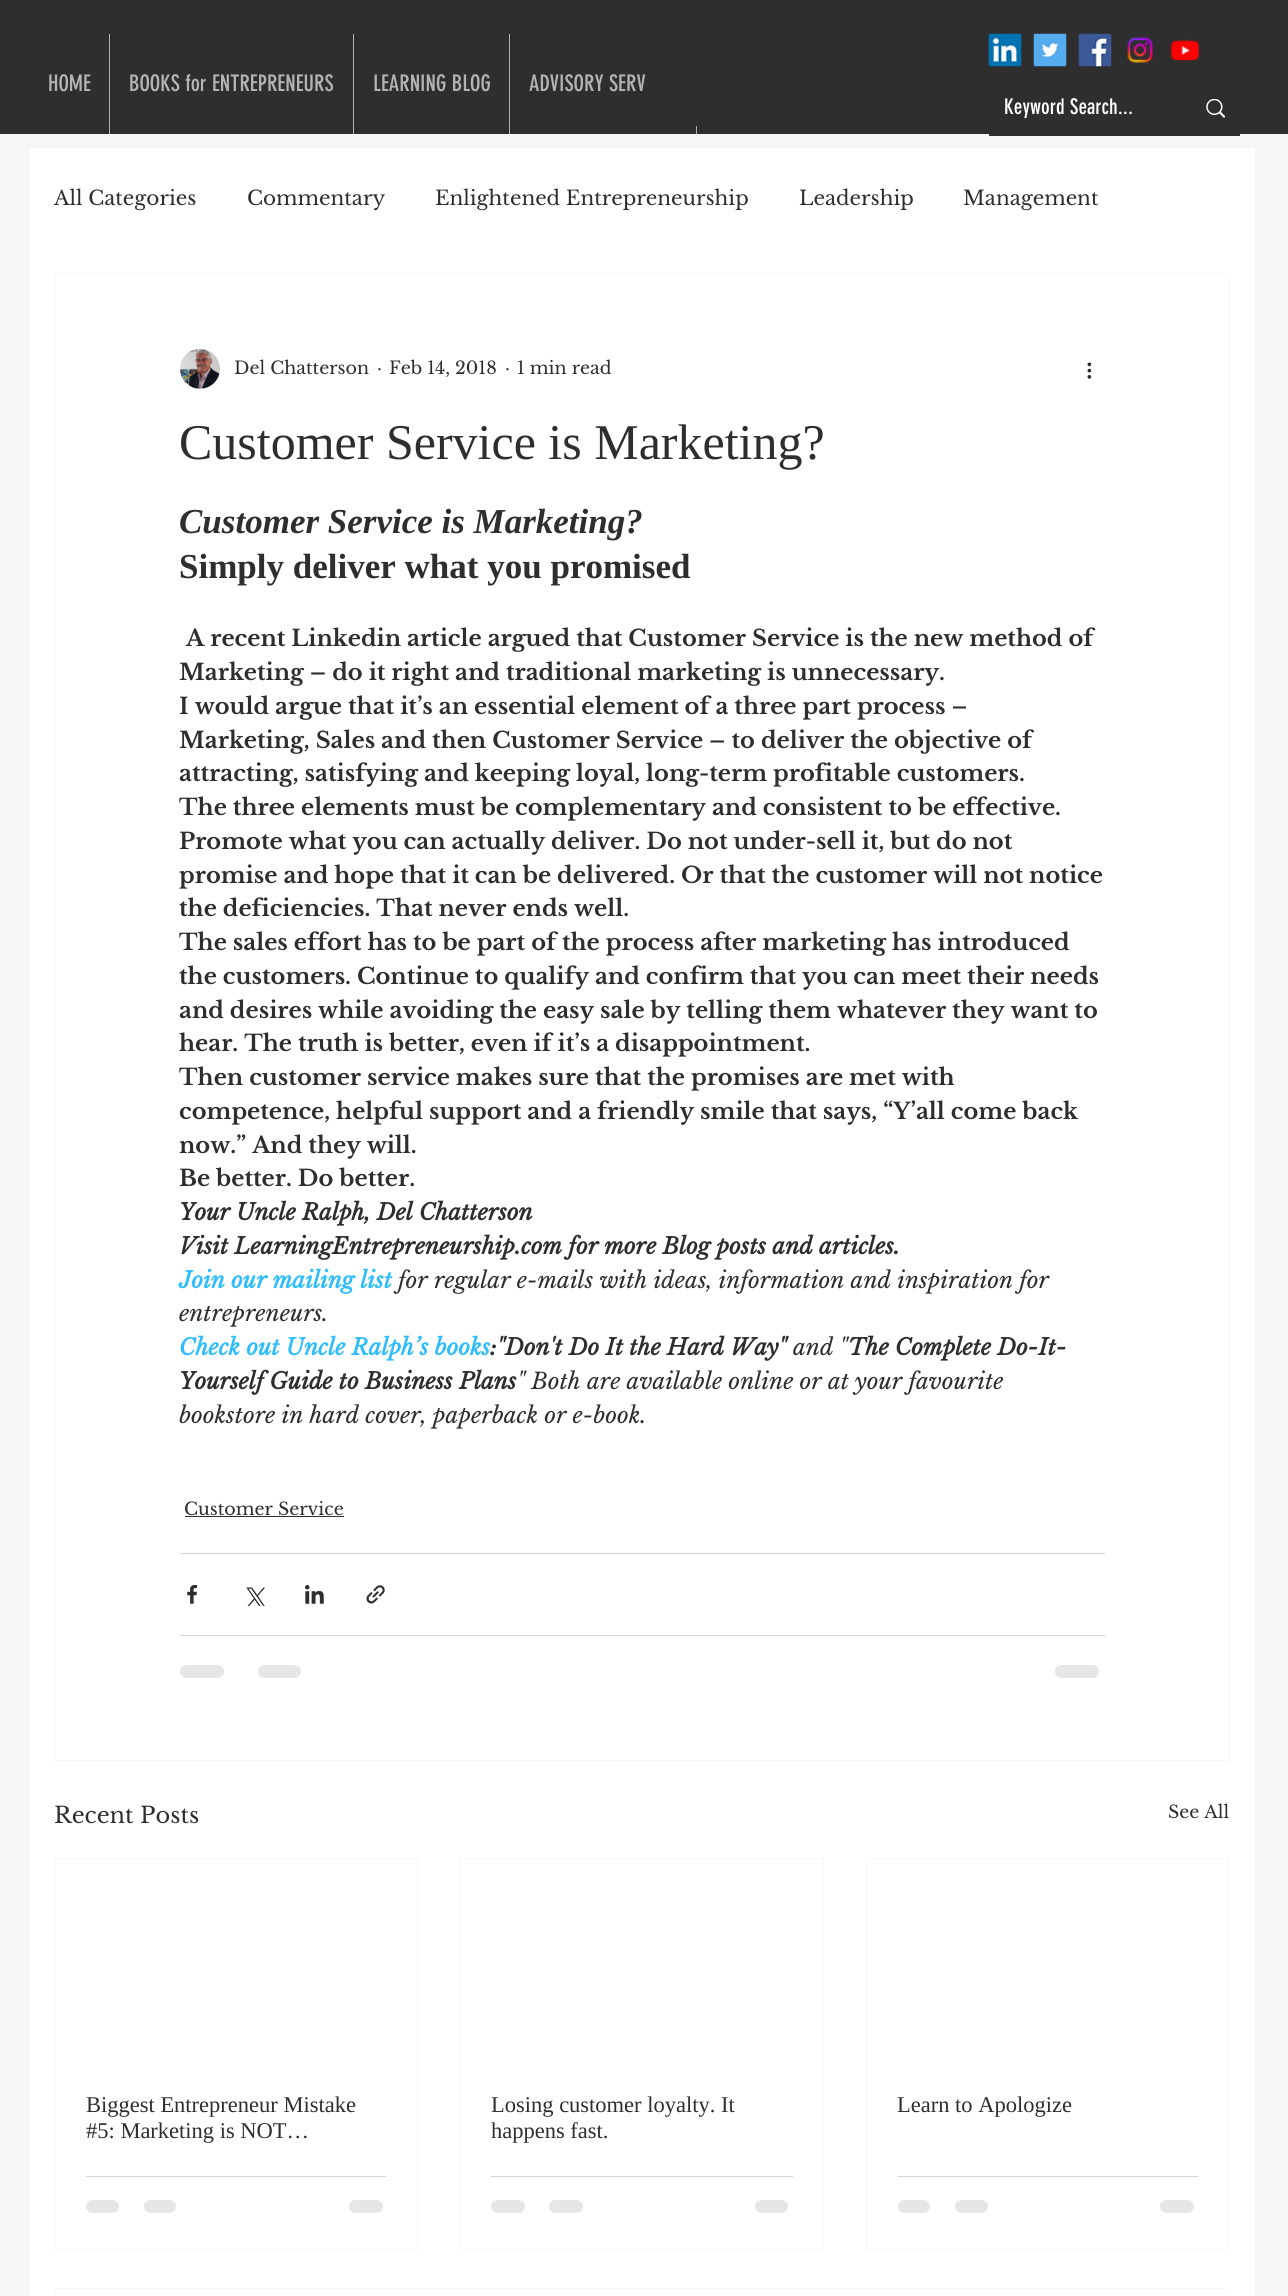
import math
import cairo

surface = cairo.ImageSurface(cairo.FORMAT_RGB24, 1288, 2296)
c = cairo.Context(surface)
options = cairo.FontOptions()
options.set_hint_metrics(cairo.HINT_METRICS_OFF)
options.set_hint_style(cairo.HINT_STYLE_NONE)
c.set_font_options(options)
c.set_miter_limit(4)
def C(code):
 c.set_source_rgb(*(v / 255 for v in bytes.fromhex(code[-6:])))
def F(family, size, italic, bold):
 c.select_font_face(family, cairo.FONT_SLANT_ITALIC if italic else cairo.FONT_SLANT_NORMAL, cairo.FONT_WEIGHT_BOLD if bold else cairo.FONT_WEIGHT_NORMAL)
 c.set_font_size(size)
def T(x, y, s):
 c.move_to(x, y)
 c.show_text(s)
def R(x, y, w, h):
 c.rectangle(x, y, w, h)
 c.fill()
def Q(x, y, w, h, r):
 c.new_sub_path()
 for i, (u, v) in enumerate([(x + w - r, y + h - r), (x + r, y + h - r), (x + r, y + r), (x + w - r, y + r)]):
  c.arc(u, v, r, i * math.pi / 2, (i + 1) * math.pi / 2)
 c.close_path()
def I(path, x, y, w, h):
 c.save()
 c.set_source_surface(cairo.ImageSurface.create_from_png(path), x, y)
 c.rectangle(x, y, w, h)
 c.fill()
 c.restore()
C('f6f6f6')
c.paint()
C('2f2e2e')
R(0,0,1288,134)
F('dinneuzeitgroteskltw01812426',22.5,0,0)
C('b3b3b3')
T(48,91,'HOME')
R(109,34,1,100)
T(129,91,'BOOKS for ENTREPRENEURS')
R(353,34,1,100)
T(373,91,'LEARNING BLOG')
R(509,34,1,100)
T(529,91,'ADVISORY SERV')
R(696,126,1,8)
I('1.png',988,33,34,34)
I('2.png',1033,33,34,34)
I('3.png',1078,33,34,34)
I('4.png',1127,37,26,26)
I('5.png',1170,39,30,23)
C('2f2e2e')
R(989,134,251,2)
F('dinneuzeitgroteskltw01812426',21.25,0,0)
C('ffffff')
T(1004,114,'Keyword Search...')
I('6.png',1206,99,19,19)
R(30,148,1225,2148)
F('Libre Baskerville',20,0,0)
C('2f2e2e')
T(54,205,'All Categories')
T(247,205,'Commentary')
T(435,205,'Enlightened Entrepreneurship')
T(799,205,'Leadership')
T(963,205,'Management')
c.rectangle(55.5,273.5,1174,1487)
C('f8f8f8')
c.set_line_width(1)
c.stroke()
I('7.png',180,349,40,40)
F('Libre Baskerville',17.5,0,0)
C('2f2e2e')
T(234,374,'Del Chatterson')
T(377,374,'·')
T(389,374,'Feb 14, 2018')
T(505,374,'·')
T(517,374,'1 min read')
I('8.png',1087,362,5,17)
F('Liberation Serif',50,0,0)
T(179,459,'Customer Service is Marketing?')
F('Liberation Serif',35,1,1)
T(179,533,'Customer Service is Marketing?')
F('Liberation Serif',35,0,1)
T(179,578,'Simply deliver what you promised')
F('Libre Baskerville',22.5,0,1)
T(186,646,'A recent Linkedin article argued that Customer Service is the new method of')
T(179,680,'Marketing – do it right and traditional marketing is unnecessary.')
T(179,714,'I would argue that it’s an essential element of a three part process –')
T(179,748,'Marketing, Sales and then Customer Service – to deliver the objective of')
T(179,781,'attracting, satisfying and keeping loyal, long-term profitable customers.')
T(179,815,'The three elements must be complementary and consistent to be effective.')
T(179,849,'Promote what you can actually deliver. Do not under-sell it, but do not')
T(179,883,'promise and hope that it can be delivered. Or that the customer will not notice')
T(179,916,'the deficiencies. That never ends well.')
T(179,950,'The sales effort has to be part of the process after marketing has introduced')
T(179,984,'the customers. Continue to qualify and confirm that you can meet their needs')
T(179,1018,'and desires while avoiding the easy sale by telling them whatever they want to')
T(179,1051,'hear. The truth is better, even if it’s a disappointment.')
T(179,1085,'Then customer service makes sure that the promises are met with')
T(179,1119,'competence, helpful support and a friendly smile that says, “Y’all come back')
T(179,1153,'now.” And they will.')
T(179,1186,'Be better. Do better.')
F('Libre Baskerville',22.5,1,1)
T(179,1220,'Your Uncle Ralph, Del Chatterson')
T(179,1254,'Visit LearningEntrepreneurship.com for more Blog posts and articles.')
C('30bdff')
T(179,1288,'Join our mailing list')
F('Libre Baskerville',22.5,1,0)
C('2f2e2e')
T(398,1288,'for regular e-mails with ideas, information and inspiration for')
T(179,1321,'entrepreneurs.')
F('Libre Baskerville',22.5,1,1)
C('30bdff')
T(179,1355,'Check out Uncle Ralph’s books')
C('2f2e2e')
T(490,1355,':"Don\'t Do It the Hard Way"')
F('Libre Baskerville',22.5,1,0)
T(793,1355,'and "')
F('Libre Baskerville',22.5,1,1)
T(848,1355,'The Complete Do-It-')
T(179,1389,'Yourself Guide to Business Plans')
F('Libre Baskerville',22.5,1,0)
T(517,1389,'" Both are available online or at your favourite')
T(179,1423,'bookstore in hard cover, paperback or e-book.')
F('Libre Baskerville',17.5,0,0)
T(184,1515,'Customer Service')
R(185,1516,159,1)
C('d5d5d5')
R(180,1553,925,1)
I('9.png',187,1585,10,19)
I('10.png',246,1587,19,19)
I('11.png',305,1585,19,19)
I('12.png',366,1585,19,19)
R(180,1635,925,1)
C('e6e6e6')
Q(180,1665,44,13,6.5)
c.fill()
Q(258,1665,43,13,6.5)
c.fill()
Q(1055,1665,44,13,6.5)
c.fill()
F('Libre Baskerville',22.5,0,0)
C('2f2e2e')
T(54,1823,'Recent Posts')
F('Libre Baskerville',17.5,0,0)
T(1168,1818,'See All')
c.rectangle(55.5,1858.5,362,391)
C('f8f8f8')
c.stroke()
F('Liberation Serif',22.5,0,0)
C('2f2e2e')
T(86,2112,'Biggest Entrepreneur Mistake')
T(86,2138,'#5: Marketing is NOT…')
C('d5d5d5')
R(86,2176,300,1)
C('e6e6e6')
Q(86,2200,33,13,6.5)
c.fill()
Q(144,2200,32,13,6.5)
c.fill()
Q(349,2200,34,13,6.5)
c.fill()
c.rectangle(460.5,1858.5,363,391)
C('f8f8f8')
c.stroke()
C('2f2e2e')
T(491,2112,'Losing customer loyalty. It')
T(491,2138,'happens fast.')
C('d5d5d5')
R(491,2176,302,1)
C('e6e6e6')
Q(491,2200,34,13,6.5)
c.fill()
Q(549,2200,34,13,6.5)
c.fill()
Q(755,2200,33,13,6.5)
c.fill()
c.rectangle(866.5,1858.5,362,391)
C('f8f8f8')
c.stroke()
C('2f2e2e')
T(897,2112,'Learn to Apologize')
C('d5d5d5')
R(898,2176,300,1)
C('e6e6e6')
Q(898,2200,32,13,6.5)
c.fill()
Q(955,2200,33,13,6.5)
c.fill()
Q(1160,2200,34,13,6.5)
c.fill()
c.rectangle(55.5,2288.5,1174,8)
C('f8f8f8')
c.stroke()
surface.write_to_png('o.png')
